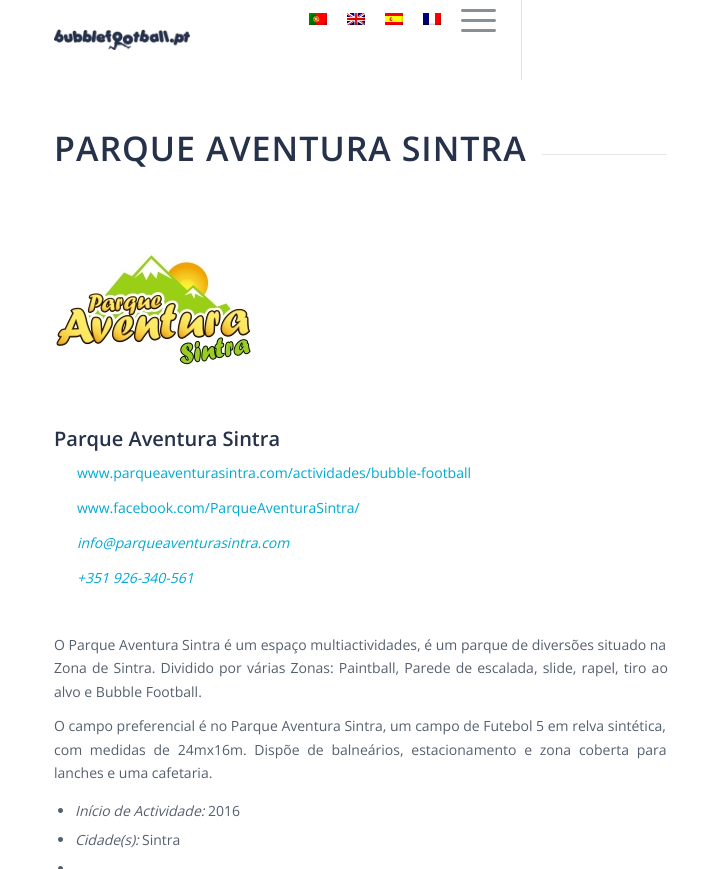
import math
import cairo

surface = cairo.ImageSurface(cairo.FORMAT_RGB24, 721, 869)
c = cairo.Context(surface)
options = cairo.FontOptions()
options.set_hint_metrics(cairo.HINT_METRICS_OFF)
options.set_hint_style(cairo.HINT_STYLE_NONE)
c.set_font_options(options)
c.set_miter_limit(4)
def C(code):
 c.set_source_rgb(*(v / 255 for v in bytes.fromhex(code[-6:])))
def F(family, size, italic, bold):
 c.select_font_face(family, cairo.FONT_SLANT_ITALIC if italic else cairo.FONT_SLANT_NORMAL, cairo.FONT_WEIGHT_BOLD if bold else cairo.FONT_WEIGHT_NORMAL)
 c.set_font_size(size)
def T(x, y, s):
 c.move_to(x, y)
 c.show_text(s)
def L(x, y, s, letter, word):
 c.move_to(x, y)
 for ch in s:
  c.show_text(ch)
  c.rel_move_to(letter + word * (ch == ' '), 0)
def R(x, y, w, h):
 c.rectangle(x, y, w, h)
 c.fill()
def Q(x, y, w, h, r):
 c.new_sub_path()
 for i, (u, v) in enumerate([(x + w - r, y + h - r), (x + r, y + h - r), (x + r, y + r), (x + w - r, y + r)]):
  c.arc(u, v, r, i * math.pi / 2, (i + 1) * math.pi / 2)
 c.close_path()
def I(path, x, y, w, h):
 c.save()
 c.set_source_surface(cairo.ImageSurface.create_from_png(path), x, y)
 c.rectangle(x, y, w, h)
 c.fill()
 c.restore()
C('ffffff')
c.paint()
I('1.png',54,29,136,21)
C('e1e1e1')
R(521,0,1,80)
I('2.png',309,13,18,12)
I('3.png',347,13,18,12)
I('4.png',385,13,18,12)
I('5.png',423,13,18,12)
C('889095')
Q(461,19,35,3,1.5)
c.fill()
Q(461,9,35,3,1.5)
c.fill()
Q(461,29,35,3,1.5)
c.fill()
F('Open Sans SemiBold',34,0,0)
C('26314a')
L(54,161,'PARQUE AVENTURA SINTRA',1,0)
C('e6e7e9')
R(542,154,125,1)
I('6.png',56,253,195,112)
F('Open Sans SemiBold',20,0,0)
C('26314a')
T(54,446,'Parque Aventura Sintra')
F('Open Sans',14,0,0)
C('00a9cf')
T(77,478,'www.parqueaventurasintra.com/actividades/bubble-football')
T(77,513,'www.facebook.com/ParqueAventuraSintra/')
F('Open Sans',14,1,0)
T(77,548,'info@parqueaventurasintra.com')
T(77,583,'+351 926-340-561')
F('Open Sans',14,0,0)
C('55606e')
T(54,650,'O Parque Aventura Sintra é um espaço multiactividades, é um parque de diversões situado na')
L(54,673,'Zona de Sintra. Dividido por várias Zonas: Paintball, Parede de escalada, slide, rapel, tiro ao',0,1.5)
T(54,697,'alvo e Bubble Football.')
T(54,731,'O campo preferencial é no Parque Aventura Sintra, um campo de Futebol 5 em relva sintética,')
L(54,755,'com medidas de 24mx16m. Dispõe de balneários, estacionamento e zona coberta para',0,4.1)
T(54,778,'lanches e uma cafetaria.')
c.new_path()
c.arc(60.5,810.5,2.5,0,2 * math.pi)
c.fill()
F('Open Sans',14,1,0)
T(75,816,'Início de Actividade:')
F('Open Sans',14,0,0)
T(208,816,'2016')
c.new_path()
c.arc(60.5,839.5,2.5,0,2 * math.pi)
c.fill()
F('Open Sans',14,1,0)
T(75,845,'Cidade(s):')
F('Open Sans',14,0,0)
T(142,845,'Sintra')
c.new_path()
c.arc(60.5,868.5,2.5,0,2 * math.pi)
c.fill()
surface.write_to_png('o.png')
